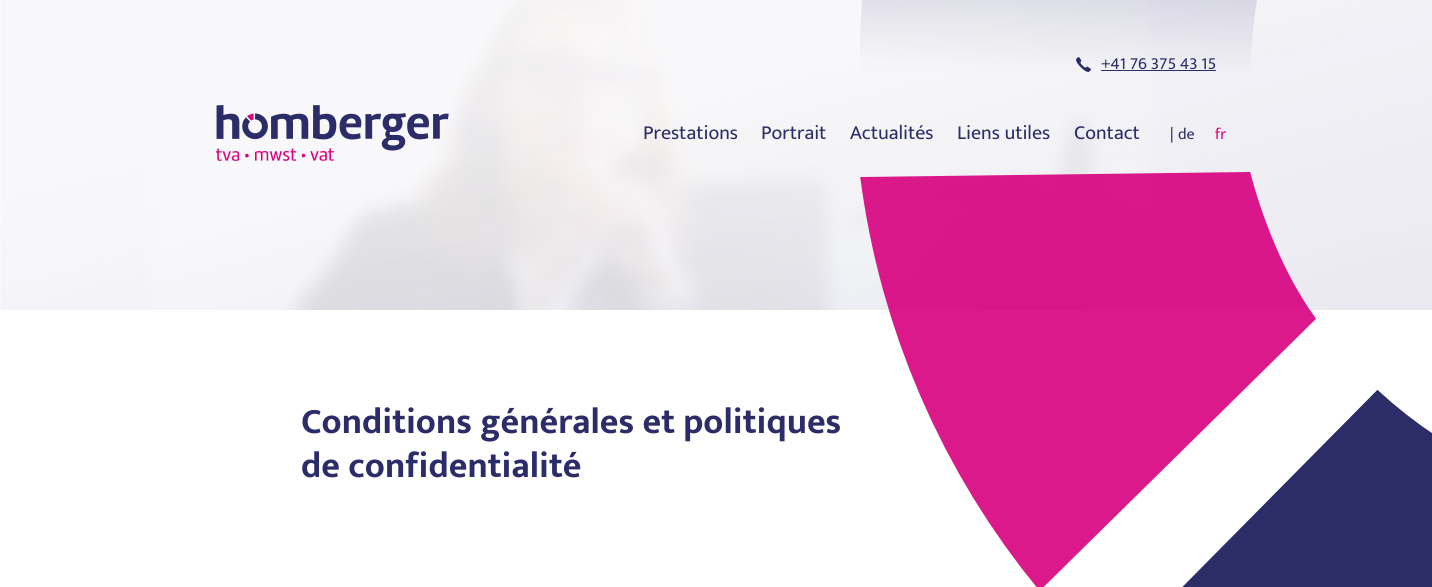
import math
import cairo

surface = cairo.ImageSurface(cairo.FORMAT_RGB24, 1432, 587)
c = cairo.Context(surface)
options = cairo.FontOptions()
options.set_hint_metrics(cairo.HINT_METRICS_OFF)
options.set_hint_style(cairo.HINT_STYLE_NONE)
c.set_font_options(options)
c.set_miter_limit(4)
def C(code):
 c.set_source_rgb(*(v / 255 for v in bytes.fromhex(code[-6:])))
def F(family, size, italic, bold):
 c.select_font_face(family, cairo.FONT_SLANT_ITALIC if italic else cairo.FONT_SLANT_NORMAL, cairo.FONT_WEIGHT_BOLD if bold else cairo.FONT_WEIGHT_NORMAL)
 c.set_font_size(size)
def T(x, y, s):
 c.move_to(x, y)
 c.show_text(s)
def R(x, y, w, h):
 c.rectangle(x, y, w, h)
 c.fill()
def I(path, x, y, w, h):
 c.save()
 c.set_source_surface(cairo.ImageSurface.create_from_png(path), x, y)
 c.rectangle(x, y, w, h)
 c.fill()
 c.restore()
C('ffffff')
c.paint()
I('1.png',0,0,1432,310)
I('2.png',860,0,572,587)
I('3.png',1076,57,15,15)
F('Mukta',17,0,0)
C('2c2c68')
T(1101,69,'+41 76 375 43 15')
R(1101,70,115,1)
I('4.png',216,105,233,56)
F('Mukta',20,0,0)
T(643,139,'Prestations')
T(761,139,'Portrait')
T(850,139,'Actualités')
T(957,139,'Liens utiles')
T(1074,139,'Contact')
F('Mukta',16,0,0)
T(1170,139,'|')
T(1178,139,'de')
C('d7007f')
T(1215,139,'fr')
F('Mukta',36,0,1)
C('2c2c68')
T(301,433,'Conditions générales et politiques')
T(301,477,'de confidentialité')
surface.write_to_png('o.png')
